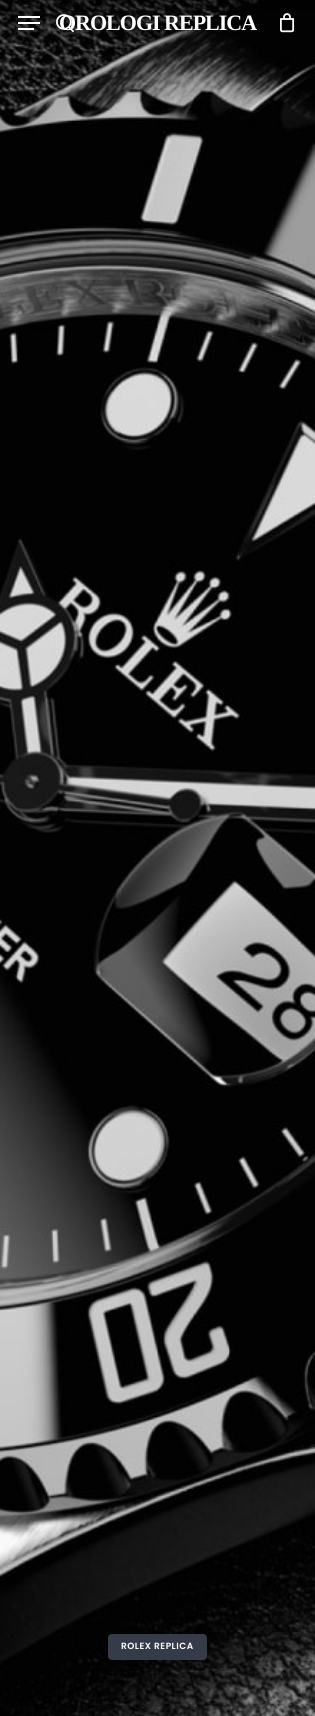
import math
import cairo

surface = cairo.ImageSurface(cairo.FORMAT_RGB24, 315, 1716)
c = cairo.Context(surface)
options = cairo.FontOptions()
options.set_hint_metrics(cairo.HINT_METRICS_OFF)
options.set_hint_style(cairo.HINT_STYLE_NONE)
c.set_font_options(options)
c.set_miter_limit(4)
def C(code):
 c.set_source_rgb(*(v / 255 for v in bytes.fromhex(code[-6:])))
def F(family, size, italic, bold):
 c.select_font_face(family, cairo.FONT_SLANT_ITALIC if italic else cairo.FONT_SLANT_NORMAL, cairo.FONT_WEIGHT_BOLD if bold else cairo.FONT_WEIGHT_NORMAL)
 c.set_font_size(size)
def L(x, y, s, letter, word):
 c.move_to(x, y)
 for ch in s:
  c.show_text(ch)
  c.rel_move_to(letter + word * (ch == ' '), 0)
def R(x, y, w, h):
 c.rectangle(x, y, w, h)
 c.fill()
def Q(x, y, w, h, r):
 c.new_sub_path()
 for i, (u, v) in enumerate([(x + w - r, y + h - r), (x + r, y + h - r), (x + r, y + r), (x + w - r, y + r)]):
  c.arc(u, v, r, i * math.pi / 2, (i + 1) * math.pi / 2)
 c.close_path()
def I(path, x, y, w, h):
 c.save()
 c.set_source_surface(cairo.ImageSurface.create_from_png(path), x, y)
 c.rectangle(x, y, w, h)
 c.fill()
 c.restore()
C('ffffff')
c.paint()
I('3.png',0,0,315,1716)
C('ffffff')
R(18,16,22,2)
R(18,28,16,2)
R(18,22,22,2)
I('1.png',56,14,18,19)
I('2.png',280,13,15,20)
F('Liberation Serif',22,0,1)
L(59,30,'OROLOGI REPLICA',-1,0)
C('353b48')
Q(108,1634,99,26,4)
c.fill()
F('Poppins SemiBold',9,0,0)
C('ffffff')
L(121,1649,'ROLEX REPLICA',.5,0)
surface.write_to_png('o.png')
